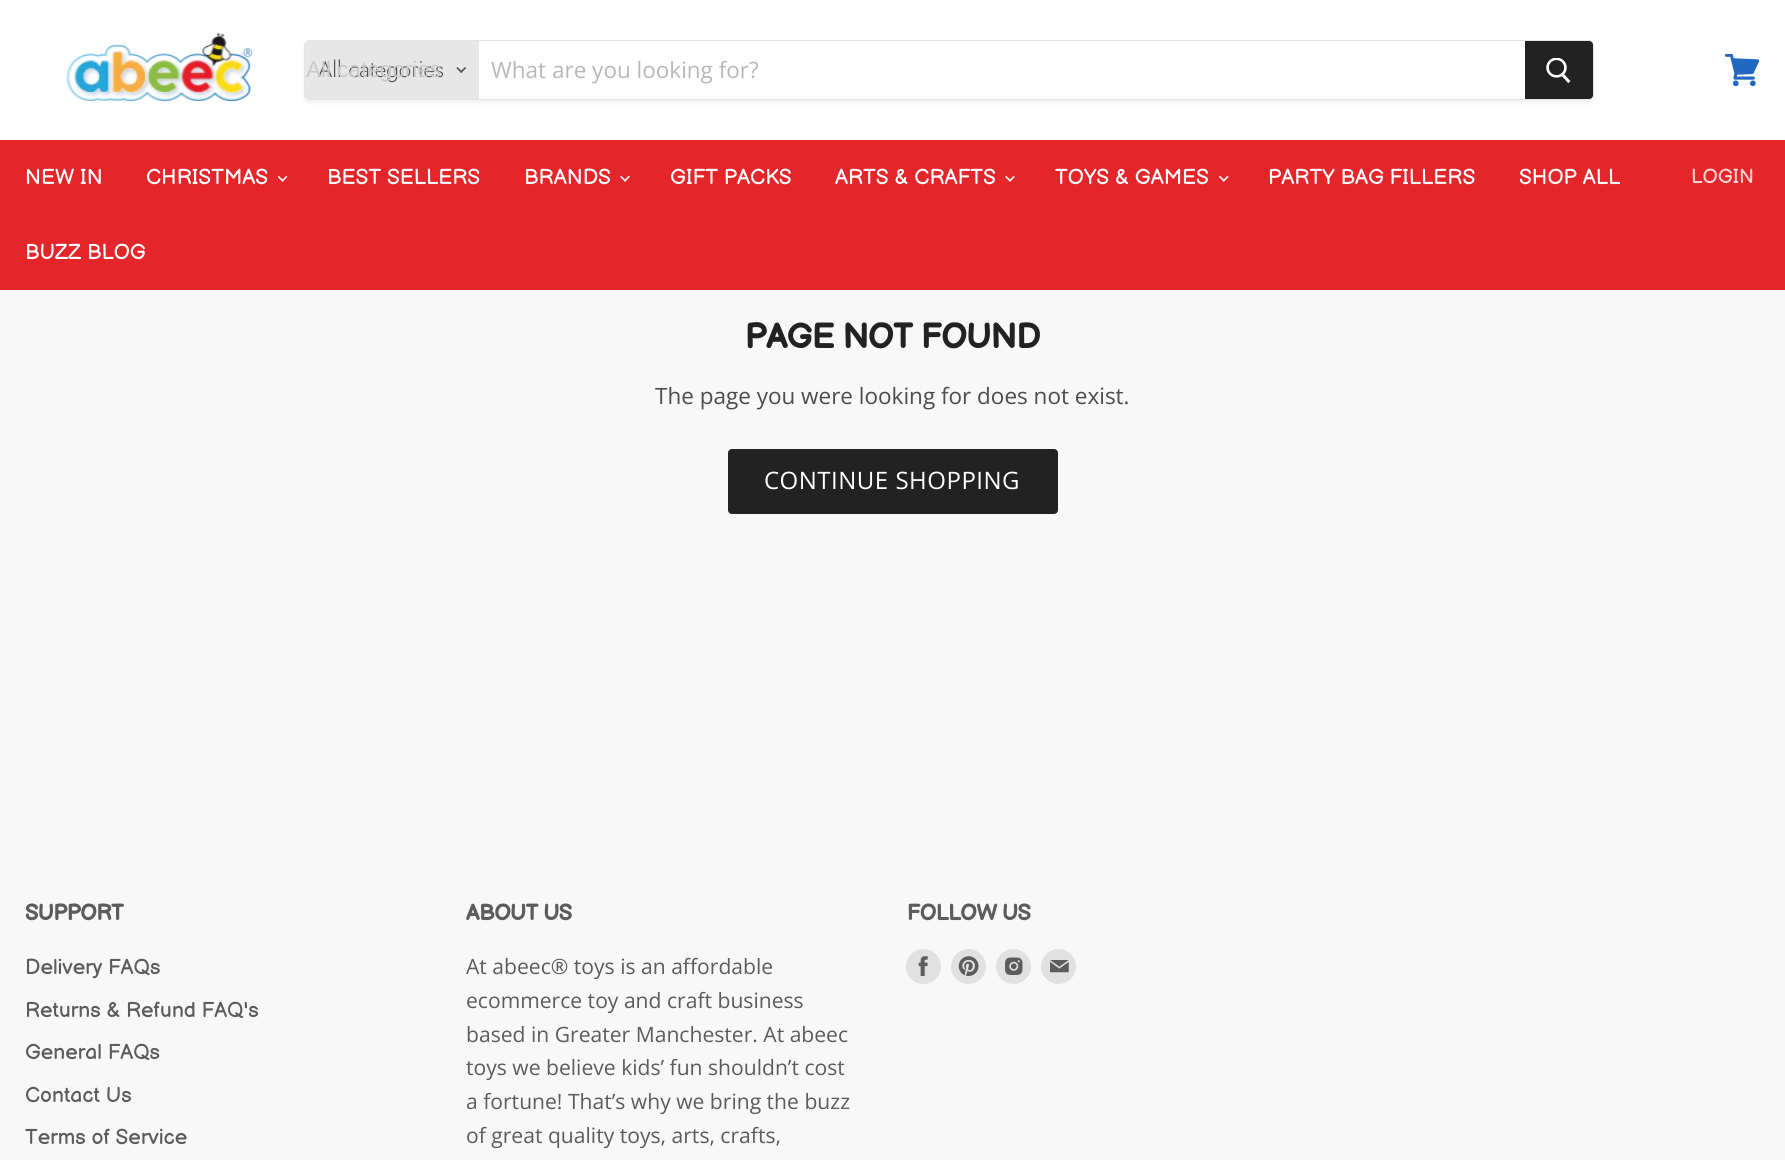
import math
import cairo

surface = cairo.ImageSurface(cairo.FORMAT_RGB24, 1785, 1160)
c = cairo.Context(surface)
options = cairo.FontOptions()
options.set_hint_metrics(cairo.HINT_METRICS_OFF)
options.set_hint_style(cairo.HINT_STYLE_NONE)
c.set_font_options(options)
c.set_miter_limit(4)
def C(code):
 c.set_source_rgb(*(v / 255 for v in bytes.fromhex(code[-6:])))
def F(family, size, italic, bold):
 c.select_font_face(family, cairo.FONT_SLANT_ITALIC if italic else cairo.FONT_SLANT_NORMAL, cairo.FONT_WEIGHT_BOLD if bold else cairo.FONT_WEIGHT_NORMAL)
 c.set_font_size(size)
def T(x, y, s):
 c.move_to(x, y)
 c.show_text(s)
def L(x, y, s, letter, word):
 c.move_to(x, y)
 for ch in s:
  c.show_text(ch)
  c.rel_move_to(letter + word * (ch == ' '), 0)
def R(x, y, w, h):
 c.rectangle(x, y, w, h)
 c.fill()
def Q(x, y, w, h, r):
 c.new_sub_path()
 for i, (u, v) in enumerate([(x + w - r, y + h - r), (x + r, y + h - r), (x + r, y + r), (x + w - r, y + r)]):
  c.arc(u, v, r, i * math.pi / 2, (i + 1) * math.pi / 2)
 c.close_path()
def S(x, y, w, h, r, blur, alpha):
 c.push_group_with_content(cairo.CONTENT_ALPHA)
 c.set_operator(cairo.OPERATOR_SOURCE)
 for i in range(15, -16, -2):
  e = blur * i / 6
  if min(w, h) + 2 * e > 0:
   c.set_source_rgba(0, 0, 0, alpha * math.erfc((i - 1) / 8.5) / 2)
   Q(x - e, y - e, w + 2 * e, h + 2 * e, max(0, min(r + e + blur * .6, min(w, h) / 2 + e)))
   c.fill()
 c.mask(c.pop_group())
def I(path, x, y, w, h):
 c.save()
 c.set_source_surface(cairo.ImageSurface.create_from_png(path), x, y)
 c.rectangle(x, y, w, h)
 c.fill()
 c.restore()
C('f8f8f8')
c.paint()
C('ffffff')
R(0,0,1785,140)
I('1.png',66,32,187,70)
c.save()
c.set_fill_rule(cairo.FILL_RULE_EVEN_ODD)
c.new_path()
c.move_to(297,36)
c.line_to(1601,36)
c.line_to(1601,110)
c.line_to(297,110)
c.close_path()
c.move_to(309,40)
c.line_to(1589,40)
c.curve_to(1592,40,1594,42,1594,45)
c.line_to(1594,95)
c.curve_to(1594,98,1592,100,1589,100)
c.line_to(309,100)
c.curve_to(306,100,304,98,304,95)
c.line_to(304,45)
c.curve_to(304,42,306,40,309,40)
c.close_path()
c.clip()
C('7c7c7c')
S(304,43,1290,60,5,2,.11)
c.restore()
Q(304.5,40.5,1289,59,4.5)
c.set_source_rgba(0.486,0.486,0.486,0.2)
c.set_line_width(1)
c.stroke()
C('e7e7e7')
c.new_path()
c.move_to(309,41)
c.line_to(479,41)
c.line_to(479,99)
c.line_to(309,99)
c.curve_to(307,99,305,97,305,95)
c.line_to(305,45)
c.curve_to(305,43,307,41,309,41)
c.close_path()
c.fill()
F('Jost Light',22.5,0,0)
C('4d4d4d')
T(318,77,'All categories')
F('Liberation Sans',22.5,0,0)
C('c9c9c9')
T(306,77,'All categories')
I('2.png',456,67,10,6)
F('Open Sans',22.5,0,0)
C('b8b8b8')
T(491,78,'What are you looking for?')
C('222222')
c.new_path()
c.move_to(1525.5,41.5)
c.line_to(1589,41.5)
c.curve_to(1591,41.5,1592.5,43,1592.5,45)
c.line_to(1592.5,95)
c.curve_to(1592.5,97,1591,98.5,1589,98.5)
c.line_to(1525.5,98.5)
c.close_path()
c.fill_preserve()
c.stroke()
I('3.png',1546,58,25,26)
I('4.png',1725,54,35,32)
C('e4262a')
R(0,140,1785,150)
F('Balsamiq Sans',21.25,0,0)
C('ffffff')
T(25,184,'NEW IN')
T(146,184,'CHRISTMAS')
I('5.png',278,175,10,7)
T(327,184,'BEST SELLERS')
T(524,184,'BRANDS')
I('6.png',620,175,10,7)
T(670,184,'GIFT PACKS')
T(835,184,'ARTS & CRAFTS')
I('6.png',1005,175,10,7)
T(1055,184,'TOYS & GAMES')
I('7.png',1219,175,10,7)
T(1268,184,'PARTY BAG FILLERS')
T(1519,184,'SHOP ALL')
T(25,259,'BUZZ BLOG')
F('Balsamiq Sans',20,0,0)
C('fad4d4')
T(1691,183,'LOGIN')
F('Balsamiq Sans',35.5,0,1)
C('222222')
L(745,348,'PAGE NOT FOUND',-1,0)
F('Open Sans',22.5,0,0)
C('4d4d4d')
T(655,404,'The page you were looking for does not exist.')
C('222222')
Q(728.5,449.5,329,64,3.5)
c.fill_preserve()
c.stroke()
F('Open Sans',24,0,0)
C('ffffff')
L(764,489,'CONTINUE SHOPPING',.5,0)
F('Balsamiq Sans',22.75,0,1)
C('5c5c5c')
L(25,920,'SUPPORT',-.75,0)
F('Balsamiq Sans',21.1,0,0)
T(25,974,'Delivery FAQs')
T(25,1017,'Returns & Refund FAQ\'s')
T(25,1059,'General FAQs')
T(25,1102,'Contact Us')
T(25,1144,'Terms of Service')
F('Balsamiq Sans',22.75,0,1)
L(466,920,'ABOUT US',-.75,0)
F('Open Sans',21.1,0,0)
T(466,974,'At abeec® toys is an affordable')
T(466,1008,'ecommerce toy and craft business')
T(466,1042,'based in Greater Manchester. At abeec')
T(466,1075,'toys we believe kids’ fun shouldn’t cost')
T(466,1109,'a fortune! That’s why we bring the buzz')
T(466,1143,'of great quality toys, arts, crafts,')
F('Balsamiq Sans',22.75,0,1)
L(907,920,'FOLLOW US',-.75,0)
C('e1e1e1')
c.new_path()
c.arc(923.5,966.5,17.5,0,2 * math.pi)
c.fill()
I('8.png',918,956,10,20)
c.arc(968.5,966.5,17.5,0,2 * math.pi)
c.fill()
I('9.png',958,956,21,20)
c.arc(1013.5,966.5,17.5,0,2 * math.pi)
c.fill()
I('10.png',1005,957,18,18)
c.arc(1058.5,966.5,17.5,0,2 * math.pi)
c.fill()
I('11.png',1050,960,19,13)
surface.write_to_png('o.png')
